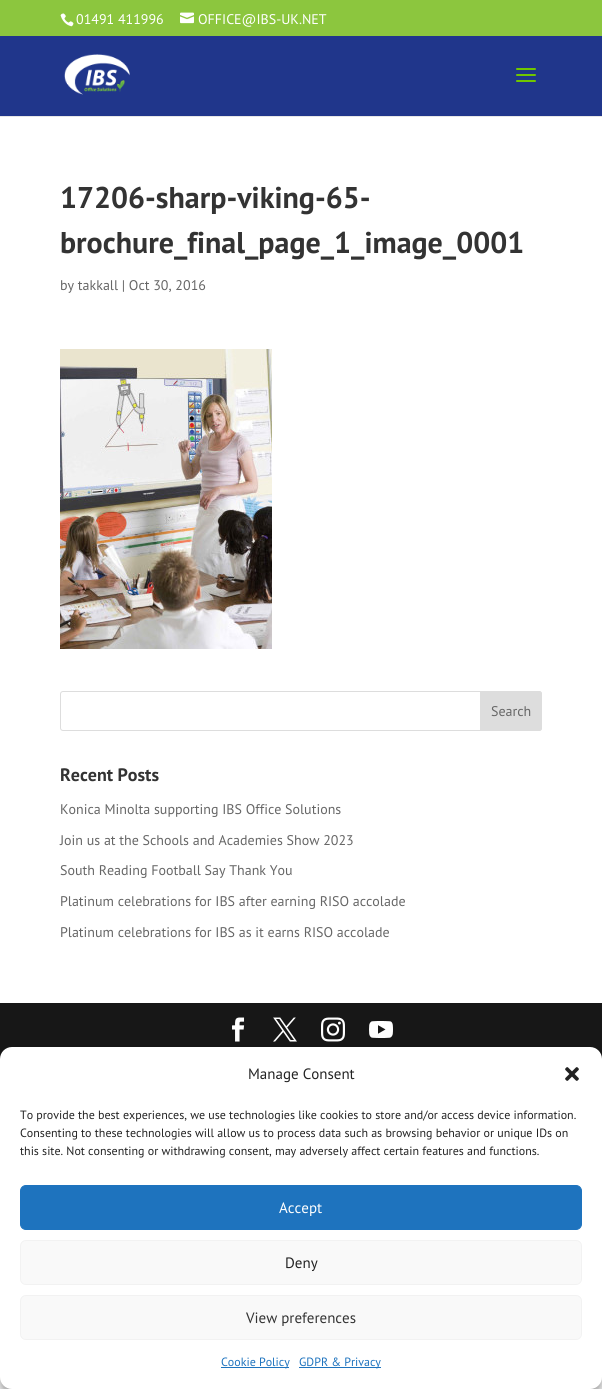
import math
import cairo

surface = cairo.ImageSurface(cairo.FORMAT_RGB24, 602, 1389)
c = cairo.Context(surface)
options = cairo.FontOptions()
options.set_hint_metrics(cairo.HINT_METRICS_OFF)
options.set_hint_style(cairo.HINT_STYLE_NONE)
c.set_font_options(options)
c.set_miter_limit(4)
def C(code):
 c.set_source_rgb(*(v / 255 for v in bytes.fromhex(code[-6:])))
def F(family, size, italic, bold):
 c.select_font_face(family, cairo.FONT_SLANT_ITALIC if italic else cairo.FONT_SLANT_NORMAL, cairo.FONT_WEIGHT_BOLD if bold else cairo.FONT_WEIGHT_NORMAL)
 c.set_font_size(size)
def T(x, y, s):
 c.move_to(x, y)
 c.show_text(s)
def R(x, y, w, h):
 c.rectangle(x, y, w, h)
 c.fill()
def Q(x, y, w, h, r):
 c.new_sub_path()
 for i, (u, v) in enumerate([(x + w - r, y + h - r), (x + r, y + h - r), (x + r, y + r), (x + w - r, y + r)]):
  c.arc(u, v, r, i * math.pi / 2, (i + 1) * math.pi / 2)
 c.close_path()
def S(x, y, w, h, r, blur, alpha):
 c.push_group_with_content(cairo.CONTENT_ALPHA)
 c.set_operator(cairo.OPERATOR_SOURCE)
 for i in range(15, -16, -2):
  e = blur * i / 6
  if min(w, h) + 2 * e > 0:
   c.set_source_rgba(0, 0, 0, alpha * math.erfc((i - 1) / 8.5) / 2)
   Q(x - e, y - e, w + 2 * e, h + 2 * e, max(0, min(r + e + blur * .6, min(w, h) / 2 + e)))
   c.fill()
 c.mask(c.pop_group())
def I(path, x, y, w, h):
 c.save()
 c.set_source_surface(cairo.ImageSurface.create_from_png(path), x, y)
 c.rectangle(x, y, w, h)
 c.fill()
 c.restore()
C('ffffff')
c.paint()
C('8cc63e')
R(0,0,602,36)
I('1.png',60,13,14,14)
F('PT Sans',14,0,0)
C('ffffff')
T(76,24,'01491 411996')
I('2.png',180,12,14,12)
T(198,24,'OFFICE@IBS-UK.NET')
C('e6e6e6')
R(0,116,602,1)
C('20368b')
R(0,36,602,80)
I('3.png',64,54,66,41)
I('4.png',516,68,20,14)
F('PT Sans',30,0,1)
C('333333')
T(60,208,'17206-sharp-viking-65-')
T(60,253,'brochure_final_page_1_image_0001')
F('PT Sans',14,0,0)
C('666666')
T(60,290,'by takkall | Oct 30, 2016')
I('5.png',60,349,212,300)
Q(60.5,691.5,481,39,2.5)
C('dddddd')
c.set_line_width(1)
c.stroke()
c.new_path()
c.move_to(480.5,691.5)
c.line_to(539,691.5)
c.curve_to(540.5,691.5,541.5,692.5,541.5,694)
c.line_to(541.5,728)
c.curve_to(541.5,729.5,540.5,730.5,539,730.5)
c.line_to(480.5,730.5)
c.close_path()
c.fill_preserve()
c.stroke()
C('666666')
T(491,716,'Search')
F('PT Sans',18,0,1)
C('333333')
T(60,781,'Recent Posts')
F('PT Sans',14,0,0)
C('666666')
T(60,814,'Konica Minolta supporting IBS Office Solutions')
T(60,845,'Join us at the Schools and Academies Show 2023')
T(60,875,'South Reading Football Say Thank You')
T(60,906,'Platinum celebrations for IBS after earning RISO accolade')
T(60,937,'Platinum celebrations for IBS as it earns RISO accolade')
C('171717')
R(0,1003,602,56)
I('6.png',232,1017,13,25)
I('7.png',273,1017,24,25)
I('8.png',321,1017,24,25)
I('9.png',369,1021,24,17)
C('000000')
S(0,1053,602,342,12,3,.23)
S(0,1057,602,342,12,10,.19)
C('808080')
S(532,1315,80,60,2,2.5,1)
C('ffffff')
Q(0,1047,602,342,12)
c.fill()
F('PT Sans',15,0,0)
C('222222')
T(248,1079,'Manage Consent')
I('10.png',565,1067,14,14)
F('PT Sans',12,0,0)
T(20,1119,'To provide the best experiences, we use technologies like cookies to store and/or access device information.')
T(20,1137,'Consenting to these technologies will allow us to process data such as browsing behavior or unique IDs on')
T(20,1155,'this site. Not consenting or withdrawing consent, may adversely affect certain features and functions.')
C('1e73be')
Q(20.5,1185.5,561,44,5.5)
c.fill_preserve()
c.stroke()
F('PT Sans',15,0,0)
C('ffffff')
T(279,1213,'Accept')
C('f9f9f9')
Q(20.5,1240.5,561,44,5.5)
c.fill_preserve()
C('f2f2f2')
c.stroke()
C('222222')
T(285,1268,'Deny')
C('f9f9f9')
Q(20.5,1295.5,561,44,5.5)
c.fill_preserve()
C('f2f2f2')
c.stroke()
C('333333')
T(246,1323,'View preferences')
C('1e73be')
R(221,1367,68,1)
F('PT Sans',12,0,0)
T(221,1366,'Cookie Policy')
R(299,1367,82,1)
T(299,1366,'GDPR & Privacy')
surface.write_to_png('o.png')
